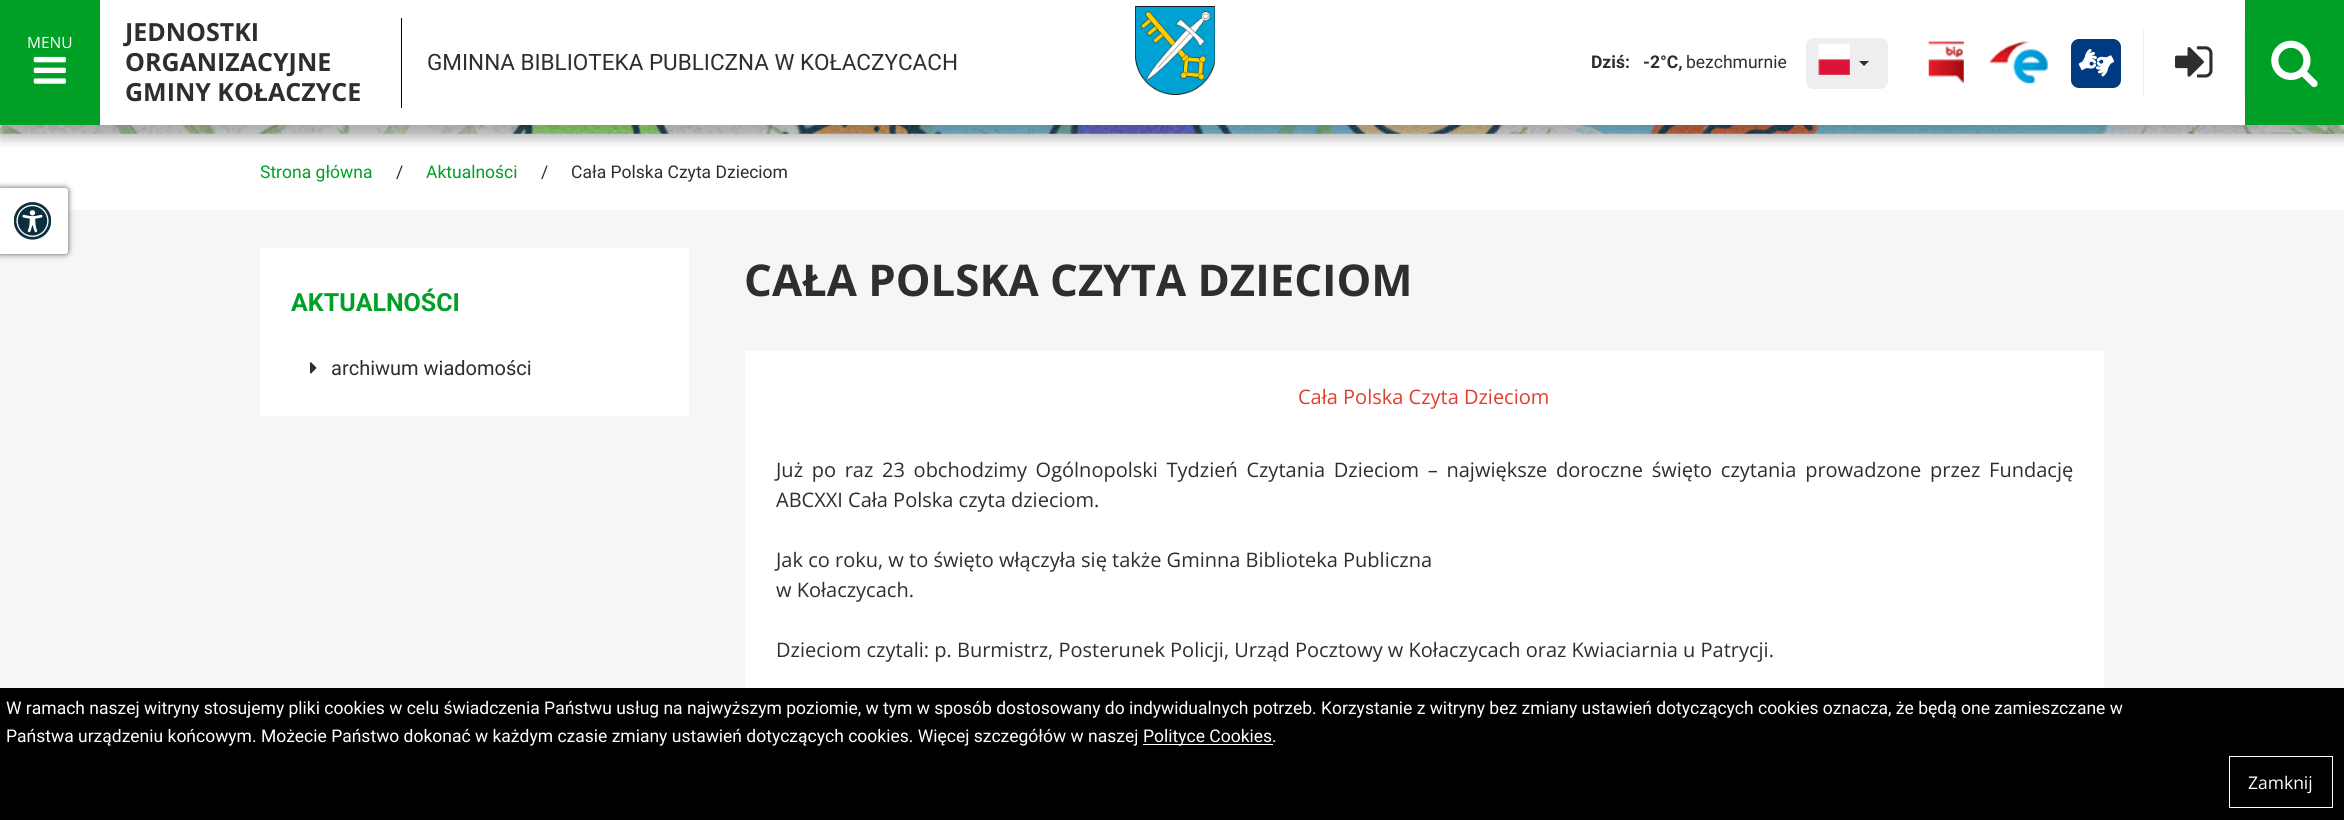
import math
import cairo

surface = cairo.ImageSurface(cairo.FORMAT_RGB24, 2344, 820)
c = cairo.Context(surface)
options = cairo.FontOptions()
options.set_hint_metrics(cairo.HINT_METRICS_OFF)
options.set_hint_style(cairo.HINT_STYLE_NONE)
c.set_font_options(options)
c.set_miter_limit(4)
def C(code):
 c.set_source_rgb(*(v / 255 for v in bytes.fromhex(code[-6:])))
def F(family, size, italic, bold):
 c.select_font_face(family, cairo.FONT_SLANT_ITALIC if italic else cairo.FONT_SLANT_NORMAL, cairo.FONT_WEIGHT_BOLD if bold else cairo.FONT_WEIGHT_NORMAL)
 c.set_font_size(size)
def T(x, y, s):
 c.move_to(x, y)
 c.show_text(s)
def L(x, y, s, letter, word):
 c.move_to(x, y)
 for ch in s:
  c.show_text(ch)
  c.rel_move_to(letter + word * (ch == ' '), 0)
def R(x, y, w, h):
 c.rectangle(x, y, w, h)
 c.fill()
def Q(x, y, w, h, r):
 c.new_sub_path()
 for i, (u, v) in enumerate([(x + w - r, y + h - r), (x + r, y + h - r), (x + r, y + r), (x + w - r, y + r)]):
  c.arc(u, v, r, i * math.pi / 2, (i + 1) * math.pi / 2)
 c.close_path()
def S(x, y, w, h, r, blur, alpha):
 c.push_group_with_content(cairo.CONTENT_ALPHA)
 c.set_operator(cairo.OPERATOR_SOURCE)
 for i in range(15, -16, -2):
  e = blur * i / 6
  if min(w, h) + 2 * e > 0:
   c.set_source_rgba(0, 0, 0, alpha * math.erfc((i - 1) / 8.5) / 2)
   Q(x - e, y - e, w + 2 * e, h + 2 * e, max(0, min(r + e + blur * .6, min(w, h) / 2 + e)))
   c.fill()
 c.mask(c.pop_group())
def I(path, x, y, w, h):
 c.save()
 c.set_source_surface(cairo.ImageSurface.create_from_png(path), x, y)
 c.rectangle(x, y, w, h)
 c.fill()
 c.restore()
C('f6f6f6')
c.paint()
I('9.png',0,125,2344,9)
C('ffffff')
R(0,134,2344,76)
C('000000')
S(0,13,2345,125,0,6,.3)
C('ffffff')
R(100,0,2145,125)
C('009f26')
R(0,0,100,125)
F('Open Sans',15.5,0,0)
C('ffffff')
T(27,48,'MENU')
I('1.png',33,56,33,28)
C('000000')
R(401,18,1,90)
F('Open Sans',25,0,1)
C('2e2e2e')
T(125,41,'JEDNOSTKI')
T(125,71,'ORGANIZACYJNE')
T(125,101,'GMINY KOŁACZYCE')
F('Roboto',22.5,0,0)
T(427,70,'GMINNA BIBLIOTEKA PUBLICZNA W KOŁACZYCACH')
I('2.png',1135,6,80,89)
F('Roboto',17.5,0,1)
T(1591,68,'Dziś:')
T(1643,68,'-2°C,')
F('Roboto',17.5,0,0)
T(1686,68,'bezchmurnie')
C('eeeeee')
Q(1806,38,82,51,8)
c.fill()
I('3.png',1818,43,32,32)
C('2e2e2e')
c.new_path()
c.move_to(1859,61)
c.line_to(1869,61)
c.line_to(1864,66)
c.close_path()
c.fill()
I('4.png',1928,41,36,43)
I('5.png',1989,41,59,43)
C('003a81')
Q(2071,39,50,49,8)
c.fill()
I('6.png',2078,49,37,28)
C('dff3f7')
R(2244,30,1,66)
R(2143,30,1,66)
I('7.png',2175,46,38,32)
C('009f26')
R(2245,0,99,125)
I('8.png',2271,40,47,48)
T(260,178,'Strona główna')
C('2e2e2e')
T(396,178,'/')
C('009f26')
T(426,178,'Aktualności')
C('2e2e2e')
T(541,178,'/')
T(571,178,'Cała Polska Czyta Dzieciom')
C('000000')
R(0,688,2344,132)
C('ffffff')
T(6,714,'W ramach naszej witryny stosujemy pliki cookies w celu świadczenia Państwu usług na najwyższym poziomie, w tym w sposób dostosowany do indywidualnych potrzeb. Korzystanie z witryny bez zmiany ustawień dotyczących cookies oznacza, że będą one zamieszczane w')
T(6,742,'Państwa urządzeniu końcowym. Możecie Państwo dokonać w każdym czasie zmiany ustawień dotyczących cookies. Więcej szczegółów w naszej')
R(1143,744,130,1)
T(1143,742,'Polityce Cookies.')
c.rectangle(2229.5,756.5,103,51)
c.set_line_width(1)
c.stroke()
F('Open Sans',17.5,0,0)
T(2248,789,'Zamknij')
C('555555')
S(-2,188,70,66,3,3,1)
C('ffffff')
Q(-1.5,188.5,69,65,2.5)
c.fill_preserve()
c.stroke()
I('10.png',14,202,37,38)
R(260,248,429,168)
F('Roboto',25,0,1)
C('009f26')
T(291,311,'AKTUALNOŚCI')
I('11.png',310,362,7,12)
F('Roboto',20,0,0)
C('2e2e2e')
T(331,375,'archiwum wiadomości')
F('Open Sans',43.75,0,1)
T(744,296,'CAŁA POLSKA CZYTA DZIECIOM')
C('ffffff')
R(745,351,1359,337)
F('Open Sans',20,0,0)
C('e03e2d')
T(1298,404,'Cała Polska Czyta Dzieciom')
C('2e2e2e')
L(776,477,'Już po raz 23 obchodzimy Ogólnopolski Tydzień Czytania Dzieciom – największe doroczne święto czytania prowadzone przez Fundację',0,3.5)
T(776,507,'ABCXXI Cała Polska czyta dzieciom.')
T(776,567,'Jak co roku, w to święto włączyła się także Gminna Biblioteka Publiczna')
T(776,597,'w Kołaczycach.')
T(776,657,'Dzieciom czytali: p. Burmistrz, Posterunek Policji, Urząd Pocztowy w Kołaczycach oraz Kwiaciarnia u Patrycji.')
surface.write_to_png('o.png')
